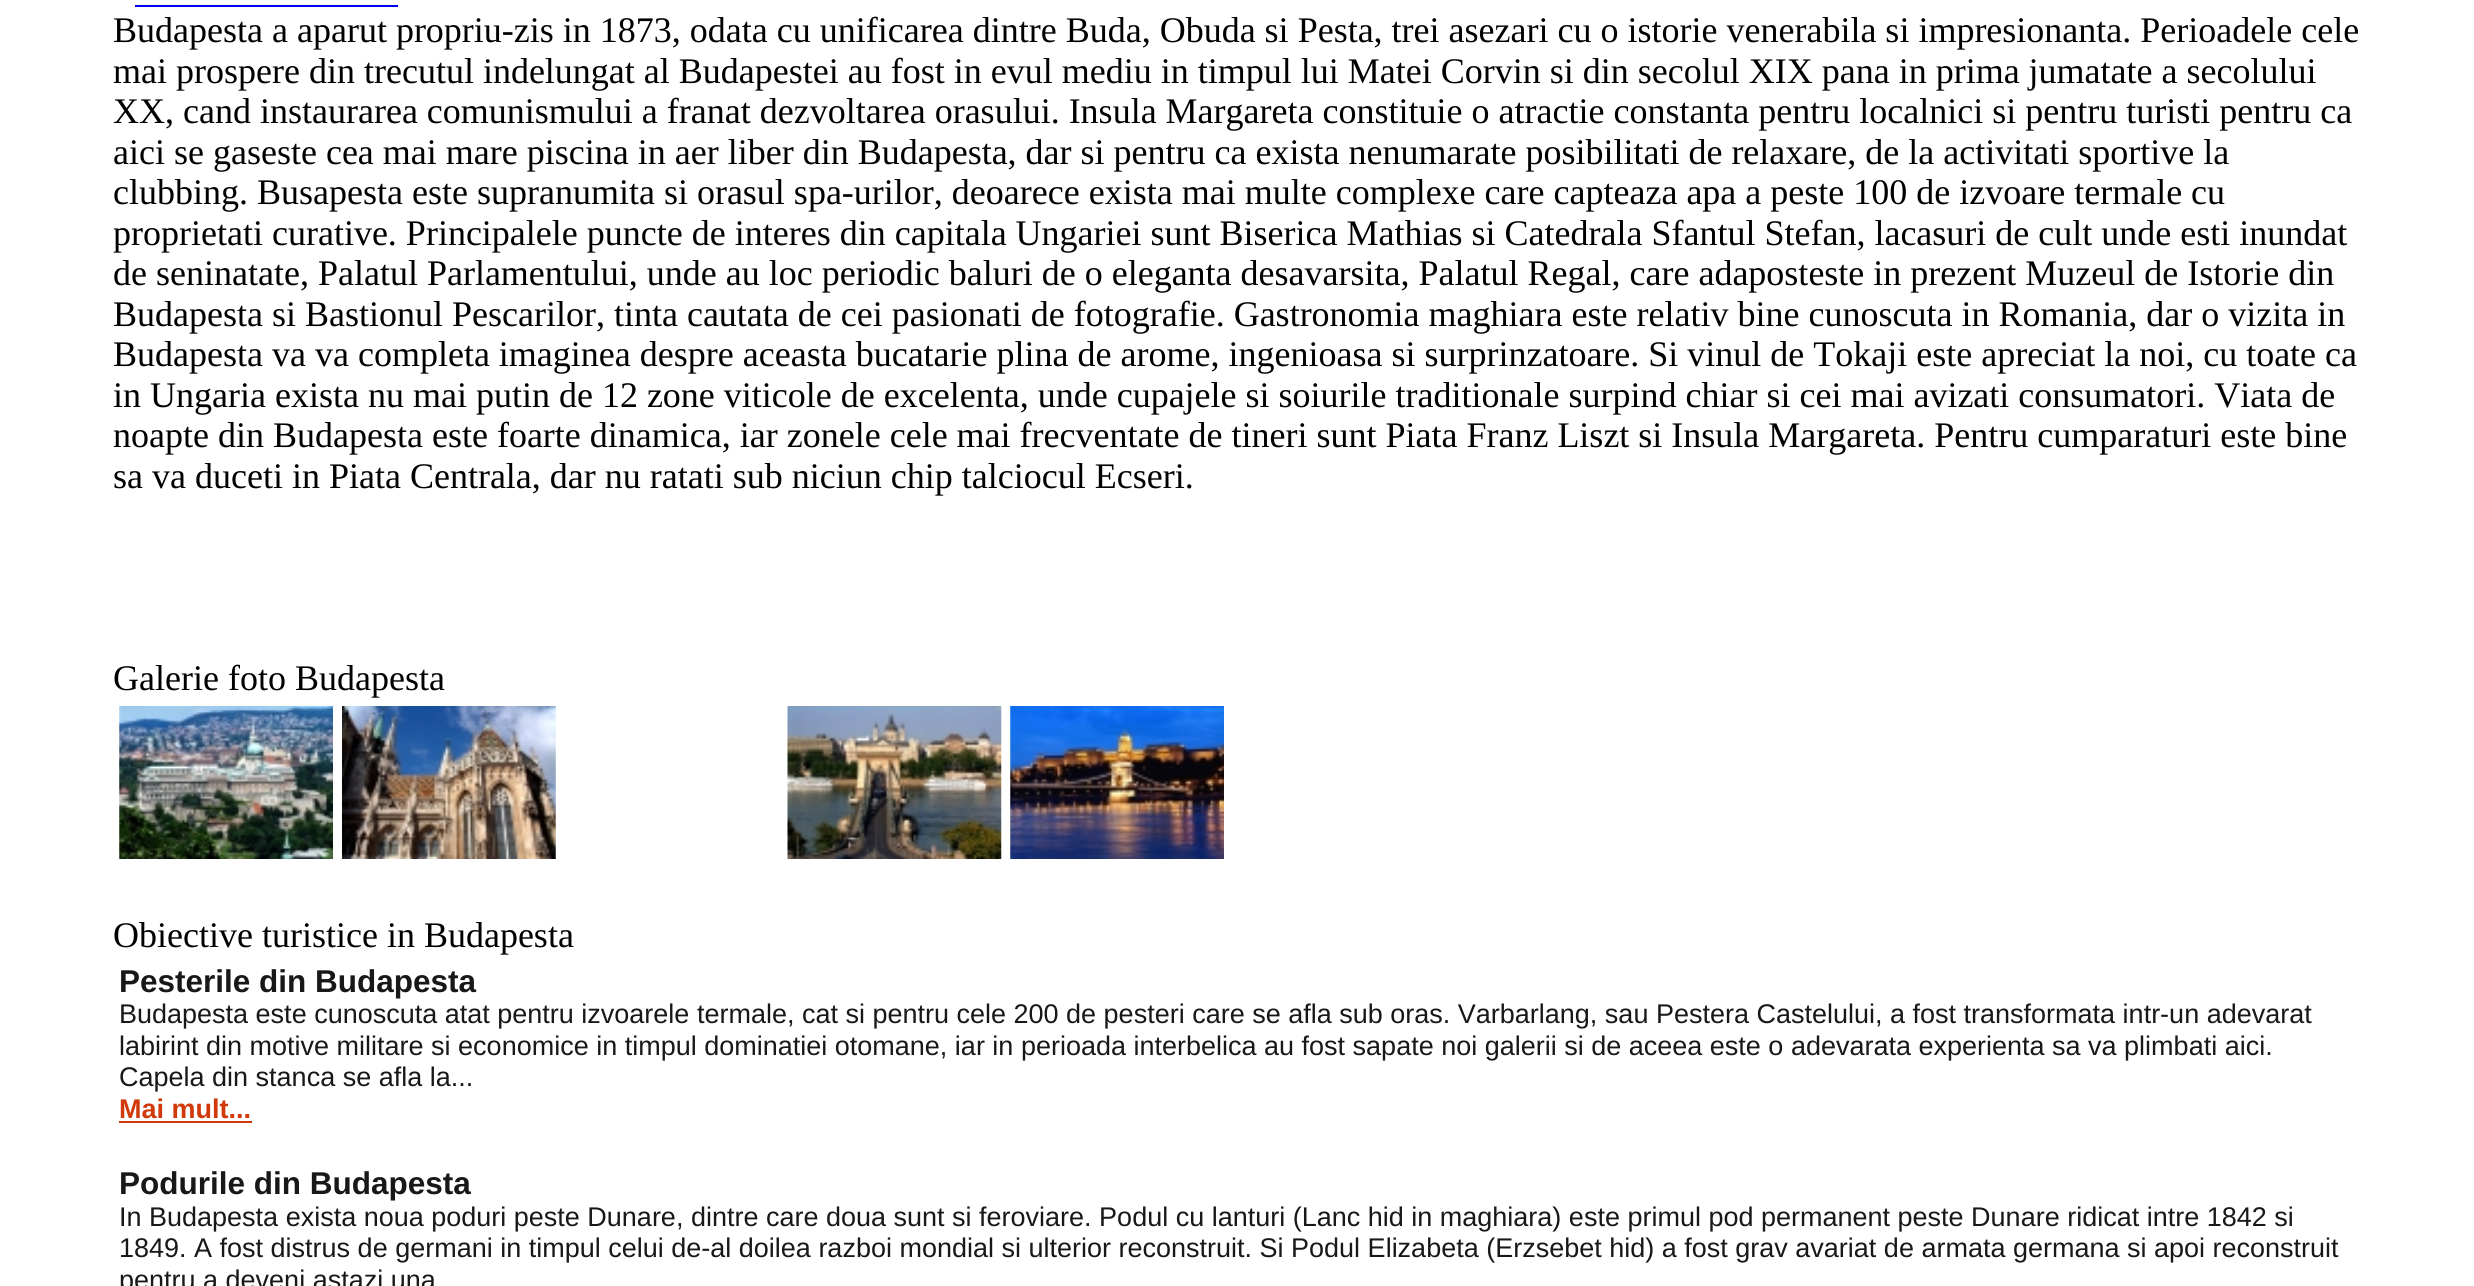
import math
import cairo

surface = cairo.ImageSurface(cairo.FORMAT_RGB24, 2474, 1286)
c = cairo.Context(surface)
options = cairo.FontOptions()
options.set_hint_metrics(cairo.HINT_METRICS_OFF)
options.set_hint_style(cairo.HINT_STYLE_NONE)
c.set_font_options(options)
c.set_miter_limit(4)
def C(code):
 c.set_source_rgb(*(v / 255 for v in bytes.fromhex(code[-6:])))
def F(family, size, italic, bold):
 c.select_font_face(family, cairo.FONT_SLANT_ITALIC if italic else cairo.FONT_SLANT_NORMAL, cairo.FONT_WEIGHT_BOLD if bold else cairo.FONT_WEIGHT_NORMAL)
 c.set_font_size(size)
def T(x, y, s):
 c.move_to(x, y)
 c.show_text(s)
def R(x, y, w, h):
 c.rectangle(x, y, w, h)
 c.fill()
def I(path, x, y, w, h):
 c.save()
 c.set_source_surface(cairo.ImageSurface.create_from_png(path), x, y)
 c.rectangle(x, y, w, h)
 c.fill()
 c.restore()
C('ffffff')
c.paint()
C('0000ee')
R(135,5,263,2)
F('Liberation Serif',36,0,0)
C('000000')
T(113,42,'Budapesta a aparut propriu-zis in 1873, odata cu unificarea dintre Buda, Obuda si Pesta, trei asezari cu o istorie venerabila si impresionanta. Perioadele cele')
T(113,83,'mai prospere din trecutul indelungat al Budapestei au fost in evul mediu in timpul lui Matei Corvin si din secolul XIX pana in prima jumatate a secolului')
T(113,123,'XX, cand instaurarea comunismului a franat dezvoltarea orasului. Insula Margareta constituie o atractie constanta pentru localnici si pentru turisti pentru ca')
T(113,164,'aici se gaseste cea mai mare piscina in aer liber din Budapesta, dar si pentru ca exista nenumarate posibilitati de relaxare, de la activitati sportive la')
T(113,204,'clubbing. Busapesta este supranumita si orasul spa-urilor, deoarece exista mai multe complexe care capteaza apa a peste 100 de izvoare termale cu')
T(113,245,'proprietati curative. Principalele puncte de interes din capitala Ungariei sunt Biserica Mathias si Catedrala Sfantul Stefan, lacasuri de cult unde esti inundat')
T(113,285,'de seninatate, Palatul Parlamentului, unde au loc periodic baluri de o eleganta desavarsita, Palatul Regal, care adaposteste in prezent Muzeul de Istorie din')
T(113,326,'Budapesta si Bastionul Pescarilor, tinta cautata de cei pasionati de fotografie. Gastronomia maghiara este relativ bine cunoscuta in Romania, dar o vizita in')
T(113,366,'Budapesta va va completa imaginea despre aceasta bucatarie plina de arome, ingenioasa si surprinzatoare. Si vinul de Tokaji este apreciat la noi, cu toate ca')
T(113,407,'in Ungaria exista nu mai putin de 12 zone viticole de excelenta, unde cupajele si soiurile traditionale surpind chiar si cei mai avizati consumatori. Viata de')
T(113,447,'noapte din Budapesta este foarte dinamica, iar zonele cele mai frecventate de tineri sunt Piata Franz Liszt si Insula Margareta. Pentru cumparaturi este bine')
T(113,488,'sa va duceti in Piata Centrala, dar nu ratati sub niciun chip talciocul Ecseri.')
T(113,690,'Galerie foto Budapesta')
I('1.png',119,706,214,153)
I('2.png',342,706,214,153)
I('3.png',787,706,215,153)
I('4.png',1010,706,214,153)
T(113,947,'Obiective turistice in Budapesta')
F('Liberation Sans',31.5,0,1)
C('191717')
T(119,992,'Pesterile din Budapesta')
F('Liberation Sans',27,0,0)
T(119,1023,'Budapesta este cunoscuta atat pentru izvoarele termale, cat si pentru cele 200 de pesteri care se afla sub oras. Varbarlang, sau Pestera Castelului, a fost transformata intr-un adevarat')
T(119,1055,'labirint din motive militare si economice in timpul dominatiei otomane, iar in perioada interbelica au fost sapate noi galerii si de aceea este o adevarata experienta sa va plimbati aici.')
T(119,1086,'Capela din stanca se afla la...')
F('Liberation Sans',27,0,1)
C('d2390a')
T(119,1118,'Mai mult...')
R(119,1121,133,2)
F('Liberation Sans',31.5,0,1)
C('191717')
T(119,1194,'Podurile din Budapesta')
F('Liberation Sans',27,0,0)
T(119,1226,'In Budapesta exista noua poduri peste Dunare, dintre care doua sunt si feroviare. Podul cu lanturi (Lanc hid in maghiara) este primul pod permanent peste Dunare ridicat intre 1842 si')
T(119,1257,'1849. A fost distrus de germani in timpul celui de-al doilea razboi mondial si ulterior reconstruit. Si Podul Elizabeta (Erzsebet hid) a fost grav avariat de armata germana si apoi reconstruit')
T(119,1289,'pentru a deveni astazi una')
surface.write_to_png('o.png')
